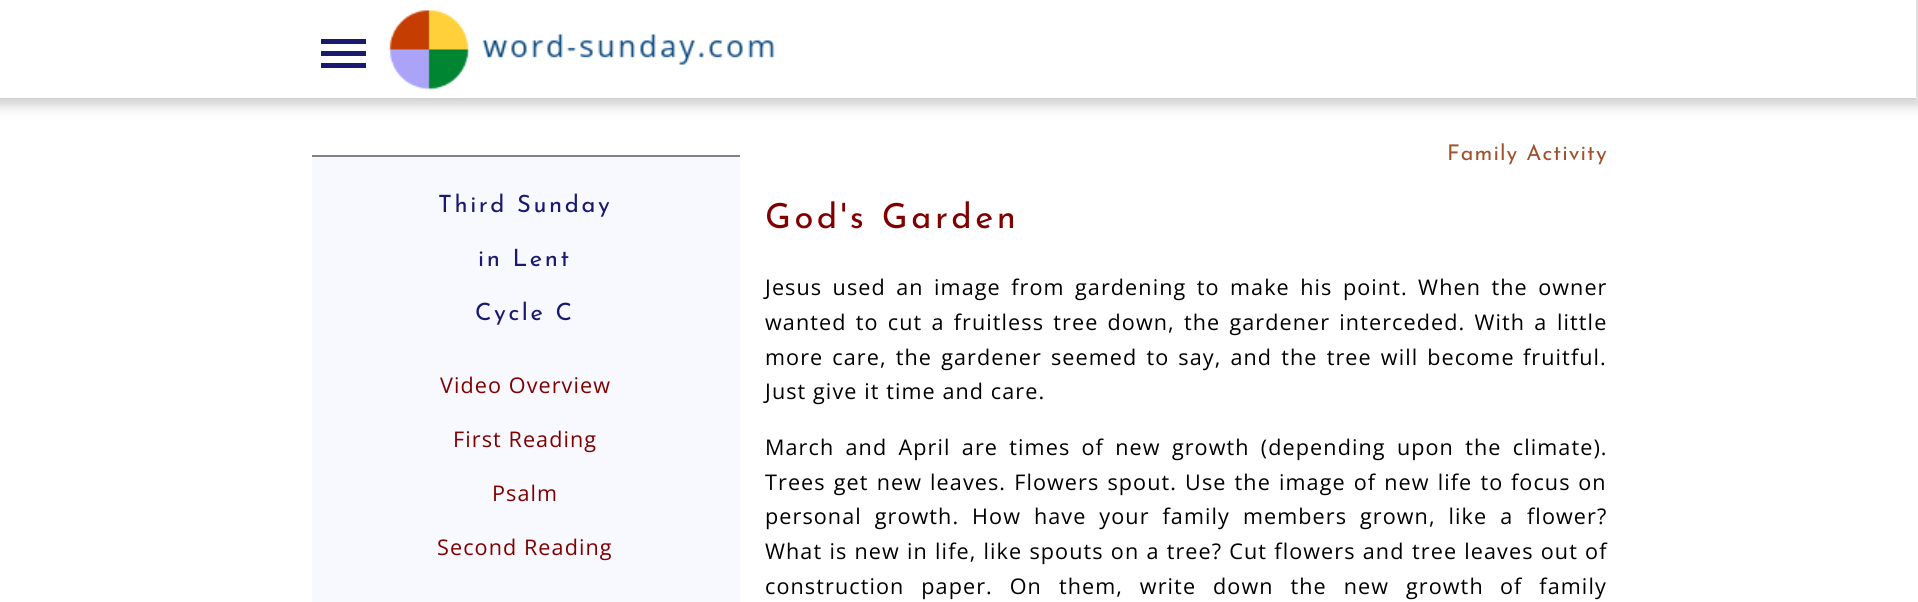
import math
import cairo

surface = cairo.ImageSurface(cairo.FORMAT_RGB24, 1918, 602)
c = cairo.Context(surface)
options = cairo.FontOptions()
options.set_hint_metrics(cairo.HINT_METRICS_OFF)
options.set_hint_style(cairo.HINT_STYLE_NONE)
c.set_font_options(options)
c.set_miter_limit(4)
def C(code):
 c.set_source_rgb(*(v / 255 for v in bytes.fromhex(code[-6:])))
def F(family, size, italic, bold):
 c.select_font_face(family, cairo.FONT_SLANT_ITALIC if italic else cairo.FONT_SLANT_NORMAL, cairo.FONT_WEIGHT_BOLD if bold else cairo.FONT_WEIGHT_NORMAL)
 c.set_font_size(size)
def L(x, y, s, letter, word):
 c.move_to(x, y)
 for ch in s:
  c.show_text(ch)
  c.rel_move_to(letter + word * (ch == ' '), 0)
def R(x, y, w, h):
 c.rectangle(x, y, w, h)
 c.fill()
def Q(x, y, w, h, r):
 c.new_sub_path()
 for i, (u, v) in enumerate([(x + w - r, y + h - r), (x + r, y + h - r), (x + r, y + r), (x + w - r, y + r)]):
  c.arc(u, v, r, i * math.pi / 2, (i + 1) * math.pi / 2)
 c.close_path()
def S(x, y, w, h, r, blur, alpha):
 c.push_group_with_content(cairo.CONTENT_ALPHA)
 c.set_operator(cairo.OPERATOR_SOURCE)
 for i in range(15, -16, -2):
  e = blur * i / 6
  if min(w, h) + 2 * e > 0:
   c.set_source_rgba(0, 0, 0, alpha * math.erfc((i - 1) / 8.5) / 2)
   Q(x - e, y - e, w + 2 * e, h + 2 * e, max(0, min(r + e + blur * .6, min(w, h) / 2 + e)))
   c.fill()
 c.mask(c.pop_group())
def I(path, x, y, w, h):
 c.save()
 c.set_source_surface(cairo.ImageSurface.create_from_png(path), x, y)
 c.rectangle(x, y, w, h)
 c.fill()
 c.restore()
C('ffffff')
c.paint()
c.save()
c.set_fill_rule(cairo.FILL_RULE_EVEN_ODD)
c.new_path()
c.move_to(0,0)
c.line_to(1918,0)
c.line_to(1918,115)
c.line_to(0,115)
c.close_path()
c.move_to(-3,-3)
c.line_to(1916,-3)
c.line_to(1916,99)
c.line_to(-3,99)
c.close_path()
c.clip()
C('a9a9a9')
S(-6,-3,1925,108,0,3,.3)
c.restore()
c.save()
c.set_fill_rule(cairo.FILL_RULE_EVEN_ODD)
c.new_path()
c.move_to(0,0)
c.line_to(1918,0)
c.line_to(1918,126)
c.line_to(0,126)
c.close_path()
c.move_to(-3,-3)
c.line_to(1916,-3)
c.line_to(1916,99)
c.line_to(-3,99)
c.close_path()
c.clip()
C('a9a9a9')
S(-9,-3,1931,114,0,4.5,.2)
c.restore()
c.set_source_rgba(1,1,1,0.8)
R(1915,0,1,98)
C('d3d3d3')
R(0,98,1916,2)
C('191970')
R(321,39,45,5)
R(321,51,45,5)
R(321,63,45,5)
I('1.png',389,10,386,80)
C('f8f8ff')
R(312,157,428,445)
C('808080')
R(312,155,428,2)
F('Josefin Sans Thin',23.75,0,0)
C('191970')
L(438,212,'Third Sunday',2.6,0)
L(478,266,'in Lent',2.6,0)
L(475,320,'Cycle C',2.6,0)
F('Open Sans',21.6,0,0)
C('800000')
L(440,393,'Video Overview',1.08,0)
L(453,447,'First Reading',1.08,0)
L(492,501,'Psalm',1.08,0)
L(437,555,'Second Reading',1.08,0)
F('Josefin Sans Thin',21.6,0,0)
C('a0522d')
L(1447,160,'Family Activity',1.08,0)
F('Josefin Sans Thin',34.5,0,0)
C('800000')
L(765,228,'God\'s Garden',3.5,0)
F('Open Sans',21.6,0,0)
C('000000')
L(765,295,'Jesus used an image from gardening to make his point. When the owner',1.08,3.75)
L(765,330,'wanted to cut a fruitless tree down, the gardener interceded. With a',1.08,2.5)
L(1557,330,'little',1.08,0)
L(765,365,'more care, the gardener seemed to say, and the tree will become',1.08,2.4)
L(1523,365,'fruitful.',1.08,0)
L(765,399,'Just give it time and care.',1.08,0)
L(765,455,'March and April are times of new growth (depending upon the climate).',1.08,4.6)
L(765,490,'Trees get new leaves. Flowers spout. Use the image of new life to',1.08,1.4)
L(1511,490,'focus on',1.08,1)
L(765,524,'personal growth. How have your family members grown, like a',1.08,6.25)
L(1527,524,'flower?',1.08,0)
L(765,559,'What is new in life, like spouts on a tree? Cut flowers and',1.08,.5)
L(1412,559,'tree leaves out of',1.08,.5)
L(765,594,'construction paper. On them, write down the new growth',1.08,10.25)
L(1500,594,'of family',1.08,10.25)
surface.write_to_png('o.png')
